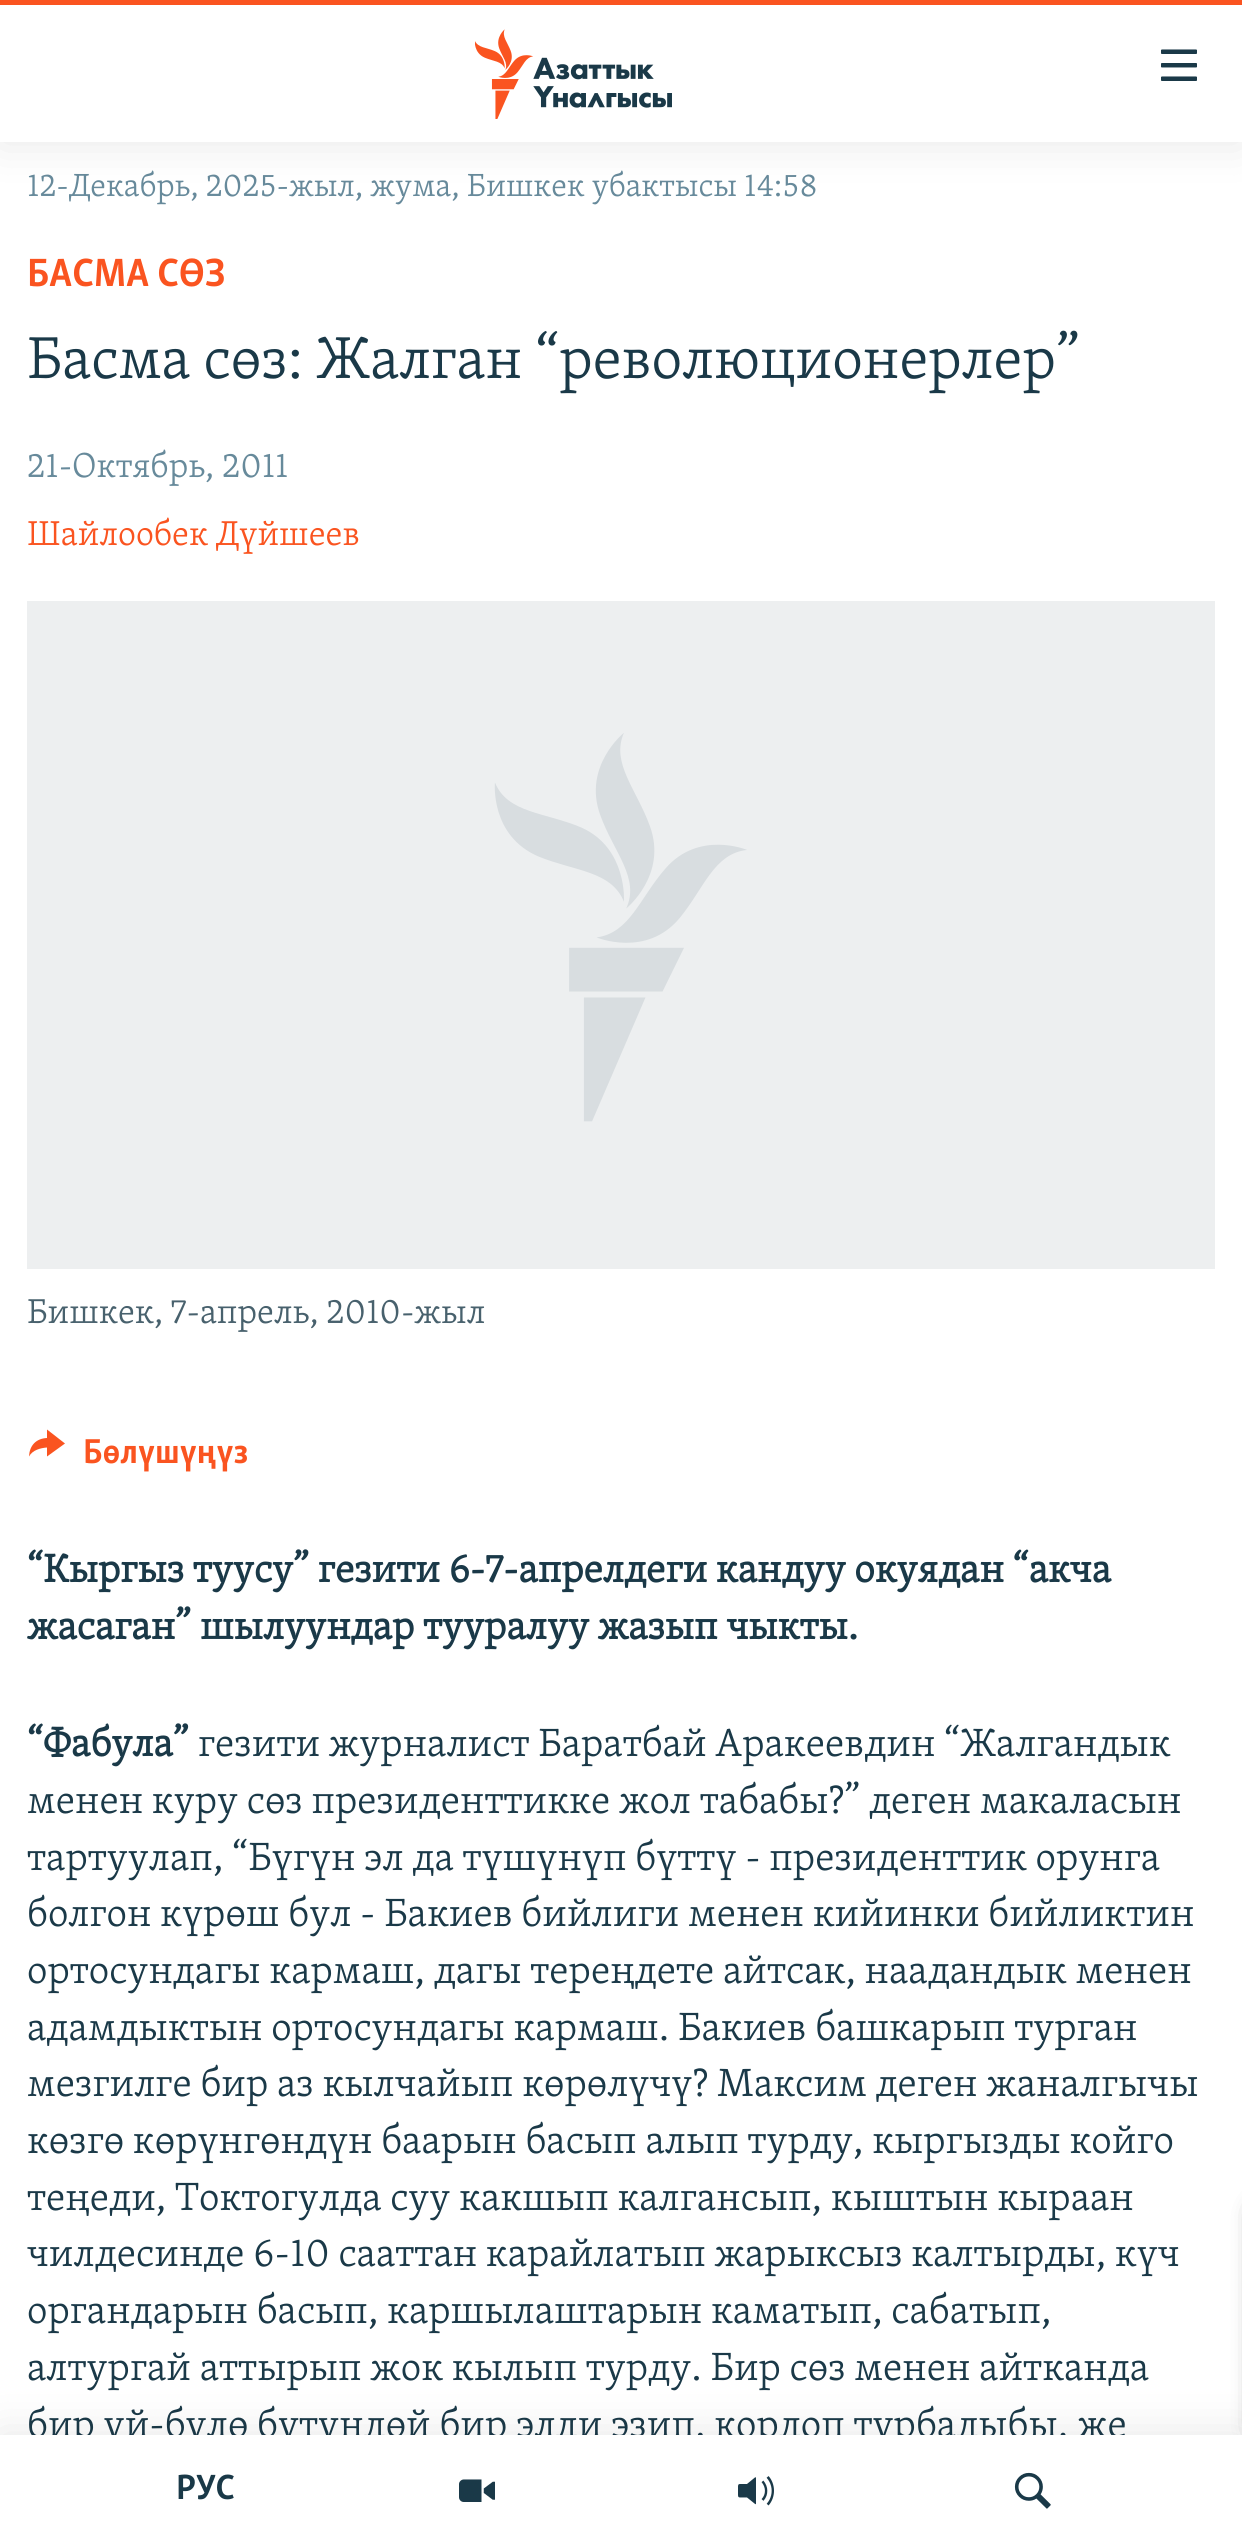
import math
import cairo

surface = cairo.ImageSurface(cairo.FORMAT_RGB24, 1242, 2546)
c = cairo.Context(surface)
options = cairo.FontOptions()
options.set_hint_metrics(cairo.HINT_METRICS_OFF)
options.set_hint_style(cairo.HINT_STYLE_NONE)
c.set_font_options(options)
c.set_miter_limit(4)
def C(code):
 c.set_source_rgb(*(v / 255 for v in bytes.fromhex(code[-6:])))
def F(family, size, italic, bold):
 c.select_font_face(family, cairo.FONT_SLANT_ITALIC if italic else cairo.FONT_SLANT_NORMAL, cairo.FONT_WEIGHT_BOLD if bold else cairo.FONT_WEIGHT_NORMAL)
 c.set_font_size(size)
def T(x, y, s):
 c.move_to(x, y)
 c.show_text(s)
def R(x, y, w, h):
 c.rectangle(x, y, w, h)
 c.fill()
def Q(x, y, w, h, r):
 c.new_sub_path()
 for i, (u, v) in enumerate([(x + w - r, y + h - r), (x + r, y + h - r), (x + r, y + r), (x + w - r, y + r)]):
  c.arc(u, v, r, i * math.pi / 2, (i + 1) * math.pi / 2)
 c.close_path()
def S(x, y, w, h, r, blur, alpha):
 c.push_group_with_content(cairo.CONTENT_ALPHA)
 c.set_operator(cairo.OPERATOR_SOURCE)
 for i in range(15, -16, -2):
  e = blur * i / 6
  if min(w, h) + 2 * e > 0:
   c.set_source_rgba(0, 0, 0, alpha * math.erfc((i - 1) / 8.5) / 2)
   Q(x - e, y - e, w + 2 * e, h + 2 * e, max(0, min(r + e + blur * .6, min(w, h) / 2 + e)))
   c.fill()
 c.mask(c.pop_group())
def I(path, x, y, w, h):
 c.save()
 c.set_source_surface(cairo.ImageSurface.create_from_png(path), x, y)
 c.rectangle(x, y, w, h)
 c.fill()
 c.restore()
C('ffffff')
c.paint()
F('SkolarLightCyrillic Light',32.9,0,0)
C('678a9b')
T(27,196,'12-Декабрь, 2025-жыл, жума, Бишкек убактысы 14:58')
F('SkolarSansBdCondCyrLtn',40.5,0,1)
C('fa5420')
T(27,286,'БАСМА СӨЗ')
F('SkolarLightCyrillic Light',60.75,0,0)
C('1a3948')
T(27,378,'Басма сөз: Жалган “революционерлер”')
F('SkolarLightCyrillic Light',35.5,0,0)
C('678a9b')
T(27,477,'21-Октябрь, 2011')
C('fa5420')
T(27,545,'Шайлообек Дүйшеев')
C('edeff0')
R(27,601,1188,668)
I('1.png',494,733,253,389)
C('48616d')
T(27,1323,'Бишкек, 7-апрель, 2010-жыл')
C('fa5420')
c.new_path()
c.move_to(29,1456.5)
c.curve_to(29.5,1445.5,36,1438.5,47,1438)
c.line_to(47,1429.5)
c.line_to(65,1443.5)
c.line_to(47,1456.5)
c.line_to(47,1447.5)
c.curve_to(40.5,1448,32.5,1450,29,1456.5)
c.close_path()
c.fill()
F('SkolarSansBdCondCyrLtn',35.5,0,1)
T(83,1463,'Бөлүшүңүз')
F('SkolarLightCyrillic',40.5,0,1)
C('1a3948')
T(27,1582,'“Кыргыз туусу” гезити 6-7-апрелдеги кандуу окуядан “акча')
T(27,1639,'жасаган” шылуундар тууралуу жазып чыкты.')
T(27,1756,'“Фабула”')
F('SkolarLightCyrillic Light',40.5,0,0)
T(198,1756,'гезити журналист Баратбай Аракеевдин “Жалгандык')
T(27,1813,'менен куру сөз президенттикке жол табабы?” деген макаласын')
T(27,1870,'тартуулап, “Бүгүн эл да түшүнүп бүттү - президенттик орунга')
T(27,1926,'болгон күрөш бул - Бакиев бийлиги менен кийинки бийликтин')
T(27,1983,'ортосундагы кармаш, дагы тереңдете айтсак, наадандык менен')
T(27,2040,'адамдыктын ортосундагы кармаш. Бакиев башкарып турган')
T(27,2096,'мезгилге бир аз кылчайып көрөлүчү? Максим деген жаналгычы')
T(27,2153,'көзгө көрүнгөндүн баарын басып алып турду, кыргызды койго')
T(27,2210,'теңеди, Токтогулда суу какшып калгансып, кыштын кыраан')
T(27,2266,'чилдесинде 6-10 сааттан карайлатып жарыксыз калтырды, күч')
T(27,2323,'органдарын басып, каршылаштарын каматып, сабатып,')
T(27,2380,'алтургай аттырып жок кылып турду. Бир сөз менен айтканда')
T(27,2437,'бир үй-бүлө бүтүндөй бир элди эзип, кордоп турбадыбы, же')
C('000000')
S(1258,2205,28,230,11,11,.85)
S(0,0,1242,142,0,22.5,.1)
C('ffffff')
R(0,5,1242,137)
C('fa5420')
R(0,0,1242,5)
I('2.png',475,29,197,90)
I('3.png',1161,49,36,32)
C('000000')
S(0,2435,1242,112,0,22.5,.1)
C('ffffff')
R(0,2435,1242,111)
F('SkolarSansBdCondCyrLtn',36,0,1)
C('1a3948')
T(176,2499,'РУС')
I('4.png',459,2479,36,23)
I('5.png',738,2476,36,30)
I('6.png',1014,2472,37,37)
surface.write_to_png('o.png')
